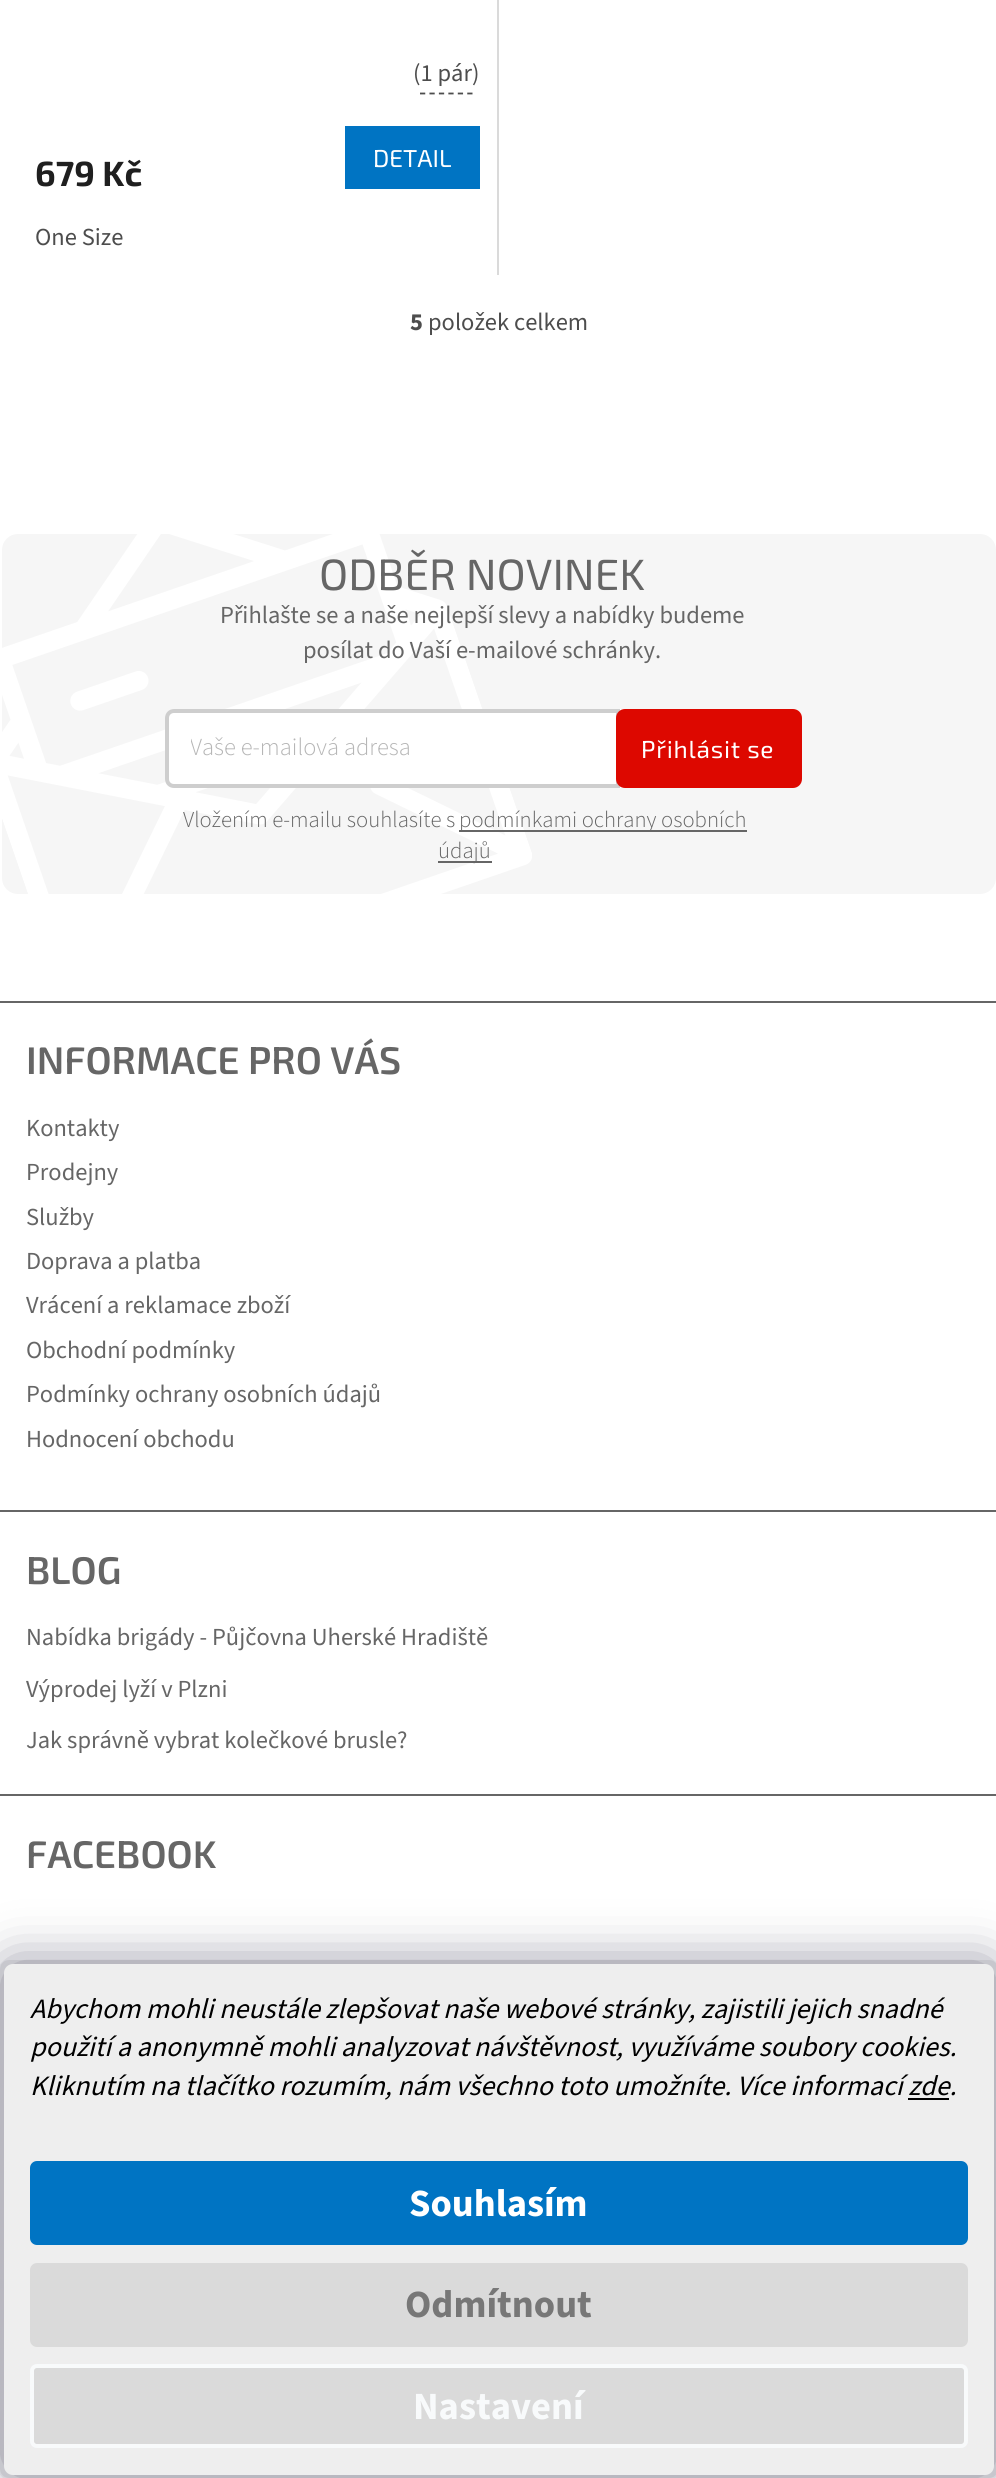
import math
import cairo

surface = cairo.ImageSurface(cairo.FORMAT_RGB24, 996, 2478)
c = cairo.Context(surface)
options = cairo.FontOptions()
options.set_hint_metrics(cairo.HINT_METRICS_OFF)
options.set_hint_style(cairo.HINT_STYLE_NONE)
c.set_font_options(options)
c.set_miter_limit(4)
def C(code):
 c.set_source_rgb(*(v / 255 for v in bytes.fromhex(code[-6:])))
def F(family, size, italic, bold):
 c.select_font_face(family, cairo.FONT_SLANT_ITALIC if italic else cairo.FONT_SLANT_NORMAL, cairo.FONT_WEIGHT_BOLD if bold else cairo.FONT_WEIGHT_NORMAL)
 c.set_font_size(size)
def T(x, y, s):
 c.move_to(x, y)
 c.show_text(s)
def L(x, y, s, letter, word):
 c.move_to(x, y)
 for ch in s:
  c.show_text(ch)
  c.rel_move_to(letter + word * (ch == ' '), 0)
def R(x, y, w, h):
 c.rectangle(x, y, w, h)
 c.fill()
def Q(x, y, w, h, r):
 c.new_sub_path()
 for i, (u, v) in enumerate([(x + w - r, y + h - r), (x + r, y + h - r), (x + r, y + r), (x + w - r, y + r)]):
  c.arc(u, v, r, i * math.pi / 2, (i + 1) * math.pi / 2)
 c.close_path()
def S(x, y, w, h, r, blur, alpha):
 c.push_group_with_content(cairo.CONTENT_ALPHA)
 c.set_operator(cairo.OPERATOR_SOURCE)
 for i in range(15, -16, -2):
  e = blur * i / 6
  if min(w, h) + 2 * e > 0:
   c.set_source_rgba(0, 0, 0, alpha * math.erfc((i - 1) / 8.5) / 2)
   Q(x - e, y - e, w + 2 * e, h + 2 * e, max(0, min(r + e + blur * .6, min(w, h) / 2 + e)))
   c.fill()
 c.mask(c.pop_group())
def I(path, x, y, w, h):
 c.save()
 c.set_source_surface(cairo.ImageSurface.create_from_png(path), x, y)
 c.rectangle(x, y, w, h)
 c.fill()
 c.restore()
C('ffffff')
c.paint()
C('dadada')
R(497,0,2,275)
F('Source Sans 3',24.5,0,0)
C('4d4d4d')
T(413,81,'(1 pár)')
c.new_path()
c.move_to(420,93.5)
c.line_to(472.5,93.5)
c.set_line_width(1.8)
c.set_dash([5.25,4.2])
c.stroke()
F('Exo 2',35,0,1)
C('1f1f1f')
T(35,186,'679 Kč')
C('0074c3')
R(345,126,135,63)
F('Exo 2',24.5,0,0)
C('ffffff')
T(373,167,'DETAIL')
F('Source Sans 3',24.5,0,0)
C('4d4d4d')
T(35,245,'One Size')
F('Source Sans 3',24.5,0,1)
T(410,330,'5')
F('Source Sans 3',24.5,0,0)
T(428,330,'položek celkem')
C('f6f6f6')
Q(1,533,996,362,17)
c.fill_preserve()
C('ffffff')
c.set_line_width(2)
c.set_dash([])
c.stroke()
I('1.png',2,534,530,360)
F('Exo 2',43.75,0,0)
C('666666')
T(319,590,'ODBĚR NOVINEK')
F('Source Sans 3',24.5,0,0)
T(220,623,'Přihlašte se a naše nejlepší slevy a nabídky budeme')
T(303,658,'posílat do Vaší e-mailové schránky.')
C('ffffff')
Q(165,709,637,79,9)
c.fill()
c.new_path()
c.move_to(174,711)
c.line_to(618,711)
c.line_to(618,786)
c.line_to(174,786)
c.curve_to(170,786,167,783,167,779)
c.line_to(167,718)
c.curve_to(167,714,170,711,174,711)
c.close_path()
C('cecece')
c.set_line_width(4)
c.stroke()
c.save()
c.rectangle(191,730,402,35)
c.clip()
F('Source Sans 3 Light',24.5,0,0)
C('b6b6b6')
T(190,755,'Vaše e-mailová adresa')
c.restore()
C('dd0800')
Q(616,709,186,79,9)
c.fill()
F('Exo 2',24.5,0,0)
C('ffffff')
L(641,758,'Přihlásit se',.75,0)
F('Source Sans 3 Light',22.75,0,0)
C('666666')
T(183,827,'Vložením e-mailu souhlasíte s')
R(459,830,288,2)
T(459,827,'podmínkami ochrany osobních')
R(438,861,54,2)
T(438,858,'údajů')
R(0,1001,996,2)
R(0,1510,996,2)
F('Exo 2 SemiBold',38.5,0,0)
T(26,1074,'INFORMACE PRO VÁS')
F('Source Sans 3',24.5,0,0)
T(26,1136,'Kontakty')
T(26,1180,'Prodejny')
T(26,1225,'Služby')
T(26,1269,'Doprava a platba')
T(26,1313,'Vrácení a reklamace zboží')
T(26,1358,'Obchodní podmínky')
T(26,1402,'Podmínky ochrany osobních údajů')
T(26,1447,'Hodnocení obchodu')
R(0,1794,996,2)
F('Exo 2 SemiBold',38.5,0,0)
T(26,1584,'BLOG')
F('Source Sans 3',24.5,0,0)
T(26,1645,'Nabídka brigády - Půjčovna Uherské Hradiště')
T(26,1697,'Výprodej lyží v Plzni')
T(26,1748,'Jak správně vybrat kolečkové brusle?')
F('Exo 2 SemiBold',38.5,0,0)
T(26,1868,'FACEBOOK')
C('eeeeee')
Q(2,1962,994,514,7)
c.fill_preserve()
c.stroke()
C('1b1939')
S(4,1964,990,511,9,26,.5)
C('eeeeee')
Q(4,1964,990,511,9)
c.fill()
F('Source Sans 3',28,1,0)
C('000000')
T(30,2018,'Abychom mohli neustále zlepšovat naše webové stránky, zajistili jejich snadné')
T(30,2056,'použití a anonymně mohli analyzovat návštěvnost, využíváme soubory cookies.')
T(30,2095,'Kliknutím na tlačítko rozumím, nám všechno toto umožníte. Více informací zde.')
R(908,2098,41,2)
C('0074c3')
Q(30,2161,938,84,7)
c.fill()
F('Source Sans 3',38.5,0,1)
C('ffffff')
T(409,2216,'Souhlasím')
C('dadada')
Q(30,2263,938,84,7)
c.fill()
C('777777')
T(405,2317,'Odmítnout')
C('dadada')
Q(32,2366,934,80,5)
c.fill_preserve()
C('f8fafb')
c.stroke()
T(413,2419,'Nastavení')
surface.write_to_png('o.png')
